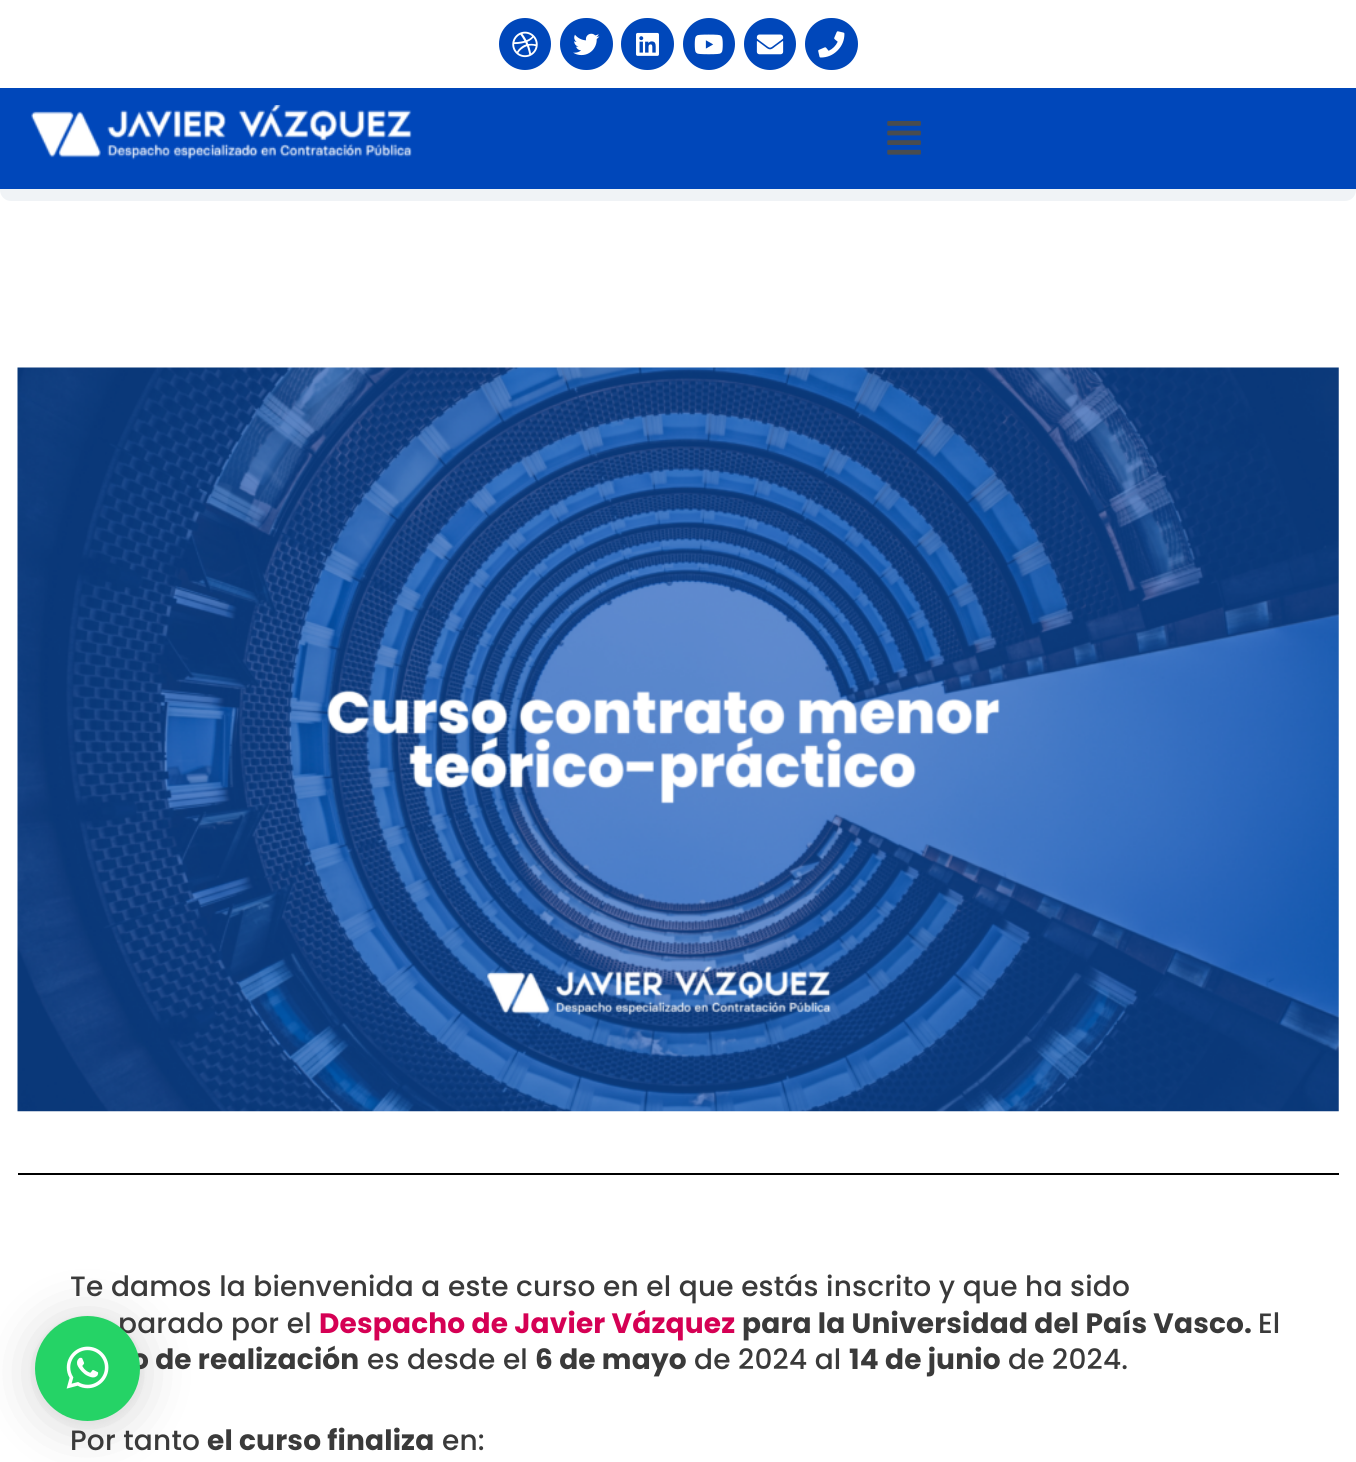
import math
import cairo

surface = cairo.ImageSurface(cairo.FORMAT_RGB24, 1356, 1462)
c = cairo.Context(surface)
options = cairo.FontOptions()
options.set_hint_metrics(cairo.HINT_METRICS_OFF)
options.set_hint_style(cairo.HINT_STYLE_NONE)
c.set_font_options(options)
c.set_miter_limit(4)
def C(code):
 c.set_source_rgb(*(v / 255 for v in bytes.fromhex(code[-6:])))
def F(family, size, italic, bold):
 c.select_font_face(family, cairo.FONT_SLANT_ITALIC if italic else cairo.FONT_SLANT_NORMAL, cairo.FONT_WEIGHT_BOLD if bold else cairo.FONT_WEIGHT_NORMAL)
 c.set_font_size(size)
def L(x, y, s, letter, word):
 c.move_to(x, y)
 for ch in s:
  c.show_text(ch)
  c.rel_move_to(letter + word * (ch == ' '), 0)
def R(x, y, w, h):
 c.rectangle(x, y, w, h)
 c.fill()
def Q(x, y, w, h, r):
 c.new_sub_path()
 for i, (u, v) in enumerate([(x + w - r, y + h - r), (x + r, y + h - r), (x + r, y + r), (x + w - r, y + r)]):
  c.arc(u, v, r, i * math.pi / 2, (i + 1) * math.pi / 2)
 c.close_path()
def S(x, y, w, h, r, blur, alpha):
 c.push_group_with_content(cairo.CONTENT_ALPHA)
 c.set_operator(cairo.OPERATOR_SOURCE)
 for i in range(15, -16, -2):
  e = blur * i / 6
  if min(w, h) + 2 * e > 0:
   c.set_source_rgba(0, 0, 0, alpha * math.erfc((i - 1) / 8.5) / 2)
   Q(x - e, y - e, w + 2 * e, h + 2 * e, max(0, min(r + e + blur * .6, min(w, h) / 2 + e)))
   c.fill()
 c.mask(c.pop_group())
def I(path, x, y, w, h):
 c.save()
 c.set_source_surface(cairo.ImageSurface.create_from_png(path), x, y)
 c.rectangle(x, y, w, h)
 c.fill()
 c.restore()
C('ffffff')
c.paint()
C('000000')
S(35,1320,105,105,52.5,28,.16)
S(35,1318,105,105,52.5,5,.06)
F('Poppins Medium',28,0,0)
C('3a3a3a')
L(118,1333,'parado por el',.18,0)
F('Poppins',28,0,1)
L(131,1369,'o de realización',.18,0)
C('25d366')
c.new_path()
c.arc(87.5,1368.5,52.5,0,2 * math.pi)
c.fill()
I('1.png',66,1346,43,43)
C('f0f3f6')
Q(0,26,1356,175,11)
c.fill()
C('0047ba')
R(0,88,1356,101)
C('ffffff')
R(0,26,1356,62)
C('0047ba')
c.arc(525,44,26,0,2 * math.pi)
c.fill()
I('2.png',512,31,26,27)
Q(560,18,53,52,26)
c.fill()
I('3.png',573,33,27,23)
Q(621,18,53,52,26)
c.fill()
I('4.png',636,32,23,24)
c.arc(709,44,26,0,2 * math.pi)
c.fill()
I('5.png',694,34,29,21)
c.arc(770,44,26,0,2 * math.pi)
c.fill()
I('6.png',756,34,28,21)
Q(805,18,53,52,26)
c.fill()
I('7.png',818,31,27,27)
I('8.png',31,105,381,55)
I('9.png',887,121,34,34)
I('10.png',17,367,1322,745)
C('000000')
R(18,1173,1321,2)
F('Poppins Medium',28,0,0)
C('3a3a3a')
L(70,1296,'Te damos la bienvenida a este curso en el que estás inscrito y que ha sido',.18,0)
F('Poppins',28,0,1)
C('d50054')
L(319,1333,'Despacho de Javier Vázquez',.18,0)
C('3a3a3a')
L(742,1333,'para la Universidad del País Vasco.',.18,0)
F('Poppins Medium',28,0,0)
L(1258,1333,'El',.18,0)
L(367,1369,'es desde el',.18,0)
F('Poppins',28,0,1)
L(535,1369,'6 de mayo',.18,0)
F('Poppins Medium',28,0,0)
L(694,1369,'de 2024 al',.18,0)
F('Poppins',28,0,1)
L(849,1369,'14 de junio',.18,0)
F('Poppins Medium',28,0,0)
L(1008,1369,'de 2024.',.18,0)
L(70,1450,'Por tanto',.18,0)
F('Poppins',28,0,1)
L(207,1450,'el curso finaliza',.18,0)
F('Poppins Medium',28,0,0)
L(442,1450,'en:',.18,0)
surface.write_to_png('o.png')
